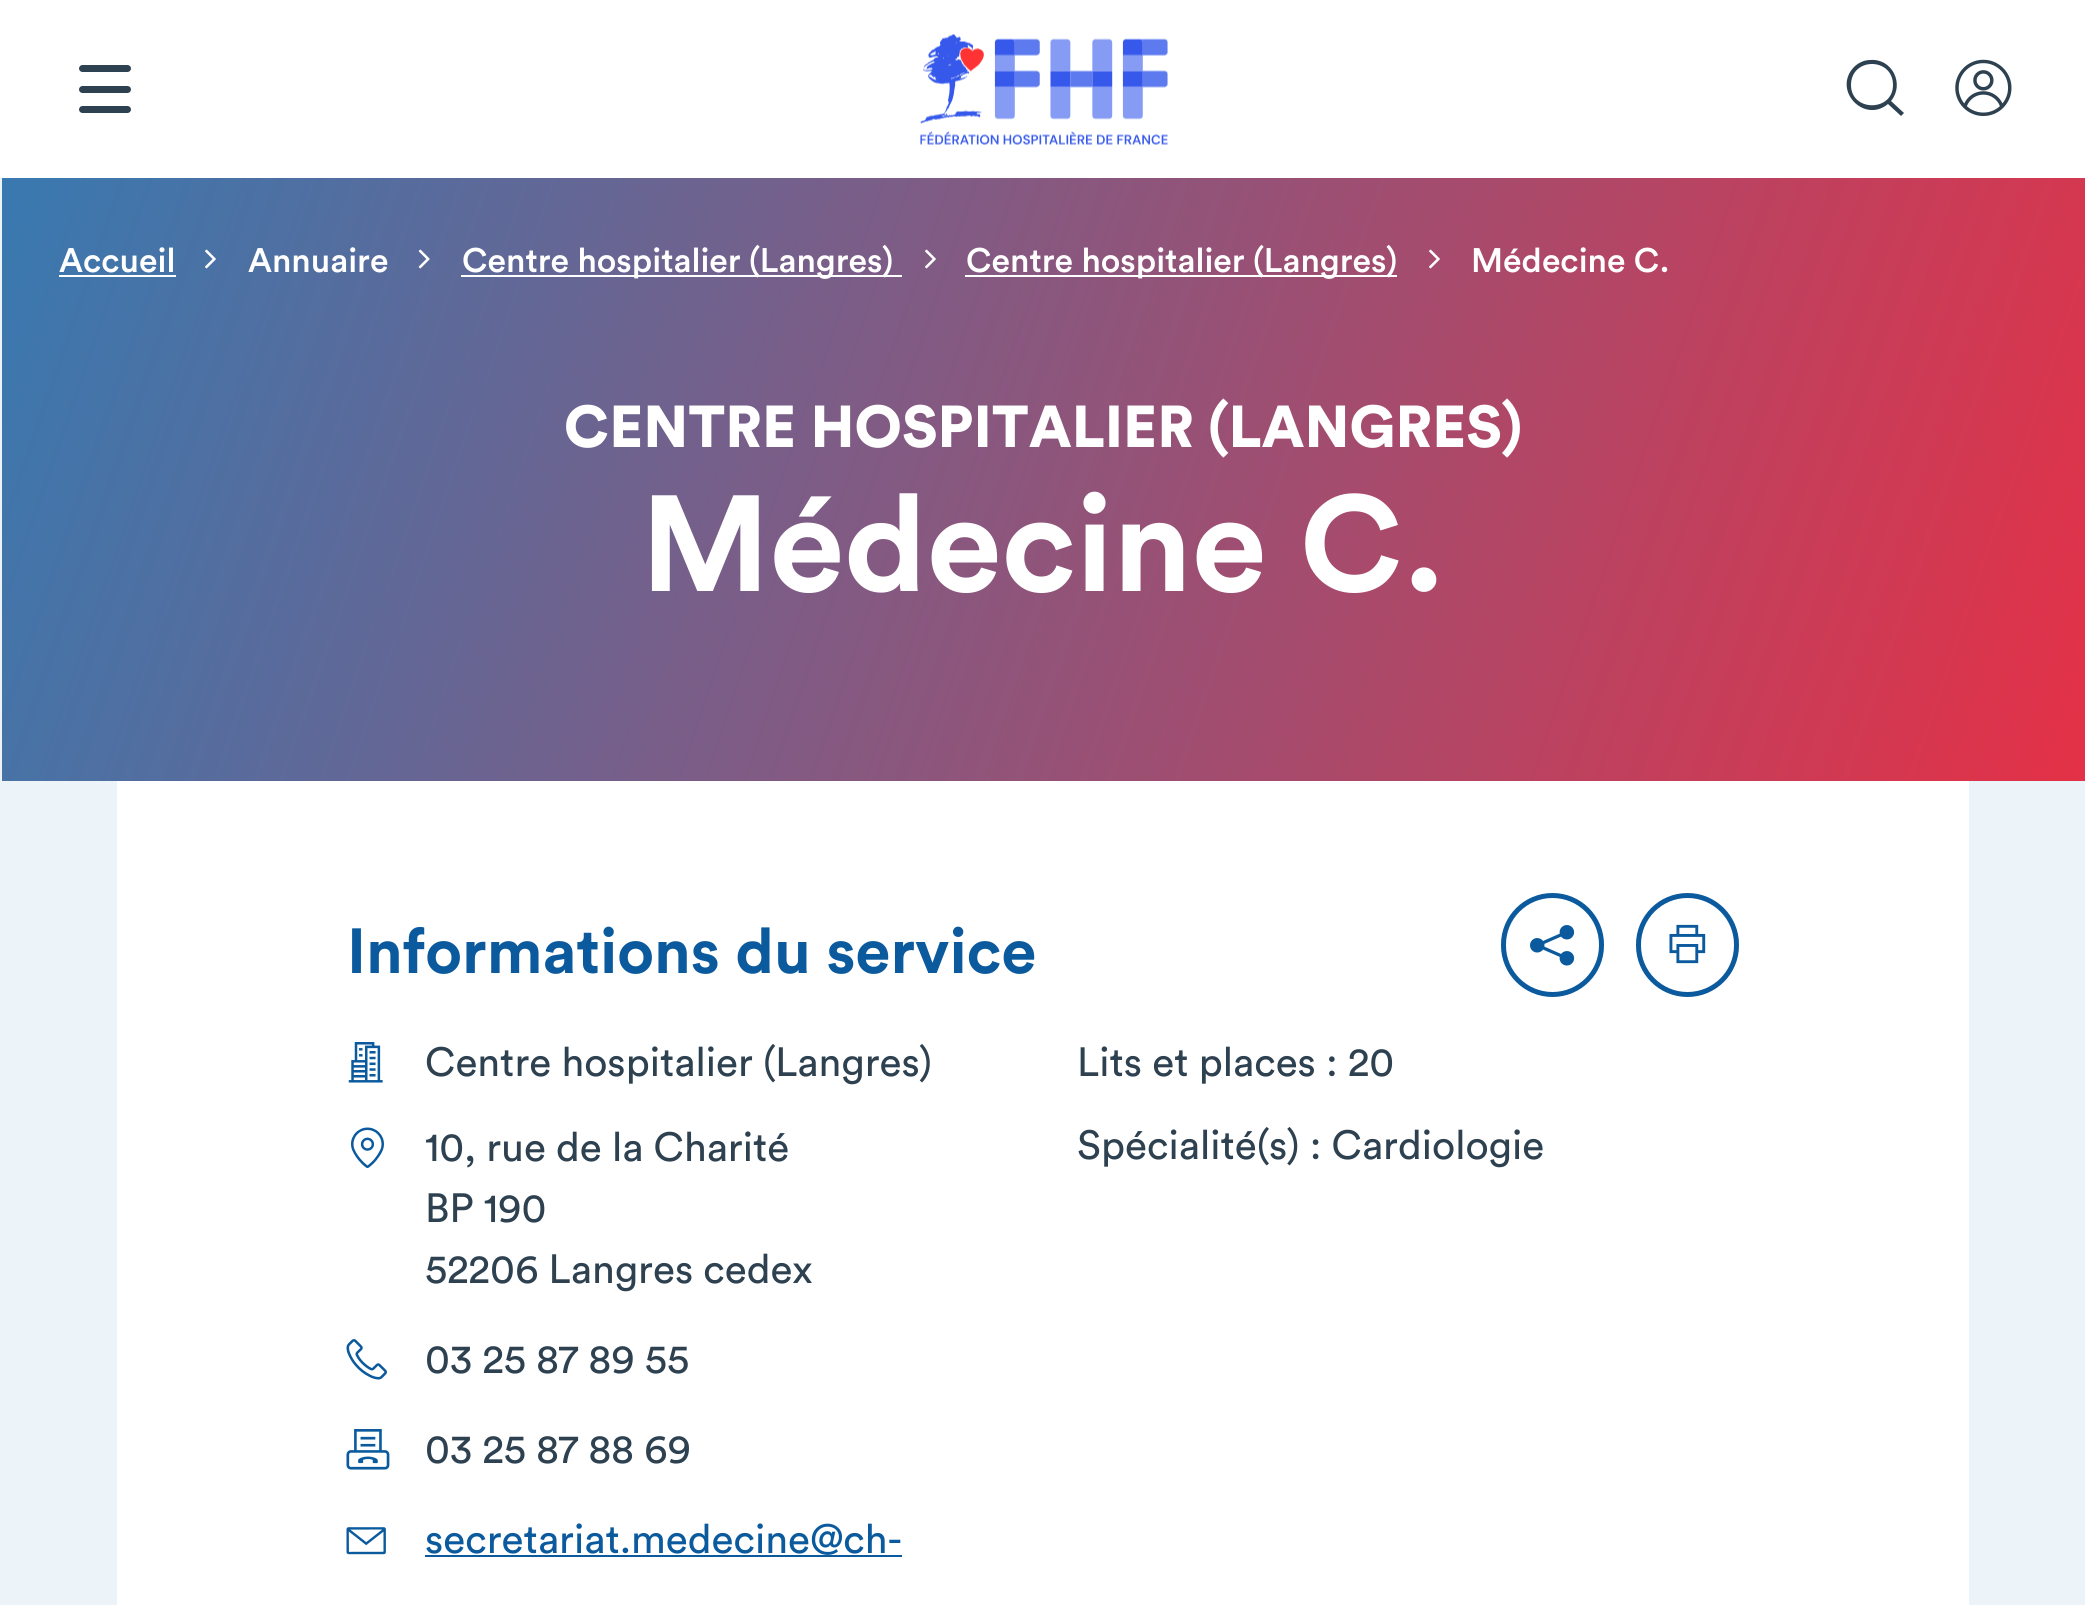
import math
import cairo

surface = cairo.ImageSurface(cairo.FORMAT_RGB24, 2085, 1605)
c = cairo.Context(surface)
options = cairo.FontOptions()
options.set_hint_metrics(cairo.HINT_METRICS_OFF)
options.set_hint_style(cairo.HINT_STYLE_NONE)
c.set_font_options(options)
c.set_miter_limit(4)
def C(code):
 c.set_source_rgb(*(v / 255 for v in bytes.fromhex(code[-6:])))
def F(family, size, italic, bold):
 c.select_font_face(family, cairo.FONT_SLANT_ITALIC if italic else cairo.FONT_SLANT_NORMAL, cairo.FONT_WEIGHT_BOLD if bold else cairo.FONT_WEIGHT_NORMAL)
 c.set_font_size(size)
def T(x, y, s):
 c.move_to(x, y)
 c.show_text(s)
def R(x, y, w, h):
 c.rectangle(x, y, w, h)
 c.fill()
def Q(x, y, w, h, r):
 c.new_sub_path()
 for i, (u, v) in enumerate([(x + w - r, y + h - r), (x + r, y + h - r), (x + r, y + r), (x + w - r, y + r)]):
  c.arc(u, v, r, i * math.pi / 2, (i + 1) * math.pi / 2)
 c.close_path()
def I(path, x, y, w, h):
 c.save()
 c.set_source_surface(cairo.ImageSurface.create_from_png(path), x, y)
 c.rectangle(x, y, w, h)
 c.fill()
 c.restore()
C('edf4f9')
c.paint()
C('ffffff')
R(0,0,2085,178)
C('2e4150')
Q(79,65,52,7,3.5)
c.fill()
Q(79,86,52,7,3.5)
c.fill()
Q(79,106,52,7,3.5)
c.fill()
I('1.png',920,34,248,111)
c.new_path()
c.move_to(1891,101)
c.curve_to(1905,84,1892,58,1870,60)
c.curve_to(1864,60,1858,63,1854,67)
c.curve_to(1832,90,1864,124,1888,104)
c.line_to(1901,116)
c.line_to(1904,113)
c.close_path()
c.move_to(1893,85)
c.curve_to(1893,112,1851,112,1851,85)
c.curve_to(1851,57,1893,57,1893,85)
c.close_path()
c.fill()
I('2.png',1955,59,57,57)
gradient = cairo.LinearGradient(19,126,2069,832)
gradient.add_color_stop_rgba(0,0.22,0.475,0.69,1)
gradient.add_color_stop_rgba(1,0.894,0.192,0.278,1)
c.set_source(gradient)
R(2,178,2083,603)
F('Circular Medium',33.75,0,0)
C('ffffff')
T(59,272,'Accueil')
R(59,275,117,2)
I('3.png',205,249,11,20)
T(248,272,'Annuaire')
I('4.png',418,249,12,20)
R(461,275,441,2)
T(462,272,'Centre hospitalier (Langres)')
I('5.png',925,249,11,20)
R(965,275,432,2)
T(966,272,'Centre hospitalier (Langres)')
I('6.png',1429,249,11,20)
T(1471,272,'Médecine C.')
F('Circular Black',58.5,0,0)
T(564,447,'CENTRE HOSPITALIER (LANGRES)')
F('Circular',135,0,1)
T(641,591,'Médecine C.')
R(117,781,1852,824)
F('Circular',63,0,1)
C('0b5a9d')
T(347,973,'Informations du service')
I('7.png',348,1042,35,41)
F('Circular',40.5,0,0)
C('2e4150')
T(425,1076,'Centre hospitalier (Langres)')
I('8.png',351,1127,33,41)
T(425,1161,'10, rue de la Charité')
T(425,1222,'BP 190')
T(425,1283,'52206 Langres cedex')
I('9.png',346,1339,41,41)
T(425,1373,'03 25 87 89 55')
I('10.png',346,1429,44,41)
T(425,1463,'03 25 87 88 69')
I('11.png',346,1527,40,28)
C('0b5a9d')
T(425,1553,'secretariat.medecine@ch-')
R(425,1555,477,2)
C('2e4150')
T(1077,1076,'Lits et places : 20')
T(1077,1159,'Spécialité(s) : Cardiologie')
Q(1503.5,895.5,98,99,49)
C('0b5a9d')
c.set_line_width(5)
c.stroke()
I('12.png',1530,925,45,41)
Q(1638.5,895.5,98,99,49)
c.stroke()
I('13.png',1669,924,37,40)
surface.write_to_png('o.png')
